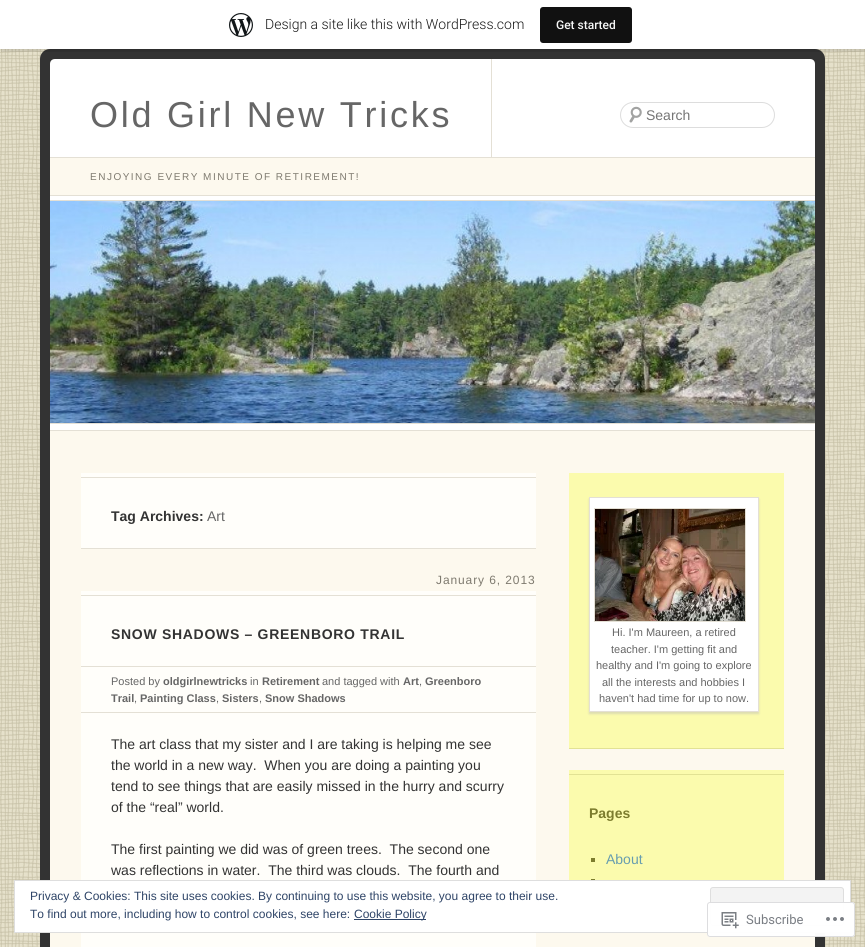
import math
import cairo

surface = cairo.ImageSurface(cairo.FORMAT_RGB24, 865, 947)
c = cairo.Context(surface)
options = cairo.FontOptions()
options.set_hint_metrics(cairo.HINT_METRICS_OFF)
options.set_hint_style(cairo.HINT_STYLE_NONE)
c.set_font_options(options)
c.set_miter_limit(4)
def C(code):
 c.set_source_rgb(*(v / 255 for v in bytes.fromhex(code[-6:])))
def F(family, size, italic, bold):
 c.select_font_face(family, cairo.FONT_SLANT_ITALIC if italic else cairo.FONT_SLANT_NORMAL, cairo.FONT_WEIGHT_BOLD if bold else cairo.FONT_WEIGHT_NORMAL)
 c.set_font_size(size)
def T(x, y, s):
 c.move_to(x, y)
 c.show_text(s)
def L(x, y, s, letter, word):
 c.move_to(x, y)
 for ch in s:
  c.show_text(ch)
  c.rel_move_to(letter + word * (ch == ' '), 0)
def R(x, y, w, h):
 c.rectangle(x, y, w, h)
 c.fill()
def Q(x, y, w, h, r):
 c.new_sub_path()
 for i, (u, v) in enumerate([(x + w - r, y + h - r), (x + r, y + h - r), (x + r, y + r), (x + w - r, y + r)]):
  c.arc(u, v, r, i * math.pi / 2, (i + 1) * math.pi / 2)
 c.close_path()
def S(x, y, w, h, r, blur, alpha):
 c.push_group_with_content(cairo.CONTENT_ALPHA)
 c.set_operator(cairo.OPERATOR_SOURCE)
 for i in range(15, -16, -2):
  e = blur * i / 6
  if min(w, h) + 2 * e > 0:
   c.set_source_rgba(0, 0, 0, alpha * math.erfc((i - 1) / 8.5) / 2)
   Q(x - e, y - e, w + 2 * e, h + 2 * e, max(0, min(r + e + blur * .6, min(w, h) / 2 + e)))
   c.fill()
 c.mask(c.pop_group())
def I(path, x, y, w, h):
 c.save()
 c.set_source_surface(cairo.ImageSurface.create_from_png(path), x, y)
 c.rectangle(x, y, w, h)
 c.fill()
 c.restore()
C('e7e2cc')
c.paint()
I('1.png',0,49,865,898)
C('333333')
Q(40,49,785,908,10)
c.fill()
C('000000')
S(0,1,865,49,0,1,.05)
c.set_source_rgba(0,0,0,0.08)
c.new_path()
c.move_to(1,49)
c.line_to(1,52)
c.line_to(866,52)
c.line_to(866,3)
c.line_to(865,3)
c.line_to(865,49)
c.close_path()
c.fill()
C('ffffff')
R(0,0,865,49)
I('2.png',229,13,24,24)
F('Roboto Light',14,0,0)
C('171717')
T(265,29,'Design a site like this with WordPress.com')
C('111111')
Q(540,7,92,36,3)
c.fill()
F('Roboto Medium',12,0,0)
C('f6f7f7')
T(556,29,'Get started')
C('ffffff')
c.new_path()
c.move_to(55,59)
c.line_to(810,59)
c.curve_to(813,59,815,61,815,64)
c.line_to(815,430)
c.line_to(50,430)
c.line_to(50,64)
c.curve_to(50,61,52,59,55,59)
c.close_path()
c.fill()
C('e4e0d5')
R(491,59,1,98)
F('Liberation Sans',36,0,0)
C('666666')
L(90,127,'Old Girl New Tricks',2.75,0)
C('fdf9ee')
R(50,158,765,37)
C('e4e0d5')
R(50,157,765,1)
R(50,195,765,1)
F('Liberation Sans',10,0,0)
C('7e7a6f')
L(90,180,'ENJOYING EVERY MINUTE OF RETIREMENT!',1.5,0)
I('3.png',629,106,13,17)
Q(620.5,102.5,154,25,12.5)
C('dddddd')
c.set_line_width(1)
c.stroke()
F('Liberation Sans',14,0,0)
C('757575')
T(646,120,'Search')
C('e4e0d5')
R(50,200,765,1)
I('4.png',50,201,765,222)
R(50,423,765,1)
C('fdf9ee')
c.new_path()
c.move_to(50,431)
c.line_to(815,431)
c.line_to(815,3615)
c.curve_to(815,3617,813,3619,810,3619)
c.line_to(55,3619)
c.curve_to(52,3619,50,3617,50,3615)
c.close_path()
c.fill()
C('e4e0d5')
R(50,430,765,1)
C('fffefa')
R(81,473,455,75)
C('e4e0d5')
R(81,548,455,1)
R(81,477,455,1)
F('Liberation Sans',14,0,1)
C('333333')
T(111,521,'Tag Archives:')
F('Liberation Sans',14,0,0)
C('666666')
T(207,521,'Art')
C('fffefa')
R(81,591,455,356)
C('e4e0d5')
R(81,595,455,1)
R(81,666,455,1)
R(81,712,455,1)
F('Liberation Sans',12,0,0)
C('7e7a6f')
L(436,584,'January 6, 2013',.9,0)
F('Liberation Sans',11,0,0)
C('666666')
T(111,685,'Posted by')
F('Liberation Sans',11,0,1)
T(163,685,'oldgirlnewtricks')
F('Liberation Sans',11,0,0)
T(250,685,'in')
F('Liberation Sans',11,0,1)
T(262,685,'Retirement')
F('Liberation Sans',11,0,0)
T(322,685,'and tagged with')
F('Liberation Sans',11,0,1)
T(403,685,'Art')
F('Liberation Sans',11,0,0)
T(419,685,',')
F('Liberation Sans',11,0,1)
T(425,685,'Greenboro')
T(111,702,'Trail')
F('Liberation Sans',11,0,0)
T(134,702,',')
F('Liberation Sans',11,0,1)
T(140,702,'Painting Class')
F('Liberation Sans',11,0,0)
T(216,702,',')
F('Liberation Sans',11,0,1)
T(222,702,'Sisters')
F('Liberation Sans',11,0,0)
T(259,702,',')
F('Liberation Sans',11,0,1)
T(265,702,'Snow Shadows')
F('Liberation Sans',14,0,1)
C('333333')
L(111,639,'SNOW SHADOWS – GREENBORO TRAIL',.7,0)
F('Liberation Sans',14,0,0)
T(111,749,'The art class that my sister and I are taking is helping me see')
T(111,770,'the world in a new way.  When you are doing a painting you')
T(111,791,'tend to see things that are easily missed in the hurry and scurry')
T(111,812,'of the “real” world.')
T(111,854,'The first painting we did was of green trees.  The second one')
T(111,875,'was reflections in water.  The third was clouds.  The fourth and')
C('fbfbad')
R(569,473,215,275)
C('e2e294')
R(569,748,215,1)
C('bfbfb6')
S(589,499,170,215,0,1,.5)
C('ffffff')
c.rectangle(589.5,497.5,169,214)
c.fill_preserve()
C('e4e0d5')
c.stroke()
c.rectangle(594.5,508.5,151,113)
c.stroke()
I('5.png',595,509,150,112)
F('Liberation Sans',11,0,0)
C('666666')
T(612,636,'Hi. I\'m Maureen, a retired')
T(611,653,'teacher. I\'m getting fit and')
T(596,669,'healthy and I\'m going to explore')
T(602,686,'all the interests and hobbies I')
T(599,702,'haven\'t had time for up to now.')
C('fbfbad')
R(569,770,215,110)
C('e2e294')
R(569,774,215,1)
F('Liberation Sans',14,0,1)
C('7c7c2e')
T(589,818,'Pages')
R(591,858,4,4)
F('Liberation Sans',14,0,0)
C('679daf')
T(606,864,'About')
C('7c7c2e')
R(591,879,4,1)
C('ffffff')
c.rectangle(14.5,880.5,836,52)
c.fill_preserve()
C('dedede')
c.stroke()
F('Liberation Sans',12,0,0)
C('2e4467')
T(30,900,'Privacy & Cookies: This site uses cookies. By continuing to use this website, you agree to their use.')
C('f3f3f3')
Q(710.5,887.5,133,38,2.5)
c.fill_preserve()
C('dedede')
c.stroke()
C('2e4467')
T(30,918,'To find out more, including how to control cookies, see here:')
R(354,919,72,1)
T(354,918,'Cookie Policy')
c.set_source_rgba(1,1,1,0.98)
Q(707,902,148,35,3)
c.fill()
Q(707.5,902.5,147,34,2.5)
c.set_source_rgba(0.863,0.863,0.871,0.98)
c.stroke()
I('6.png',721,912,18,17)
F('Roboto',13,0,0)
C('7a7e84')
T(746,924,'Subscribe')
I('7.png',826,917,18,4)
surface.write_to_png('o.png')
